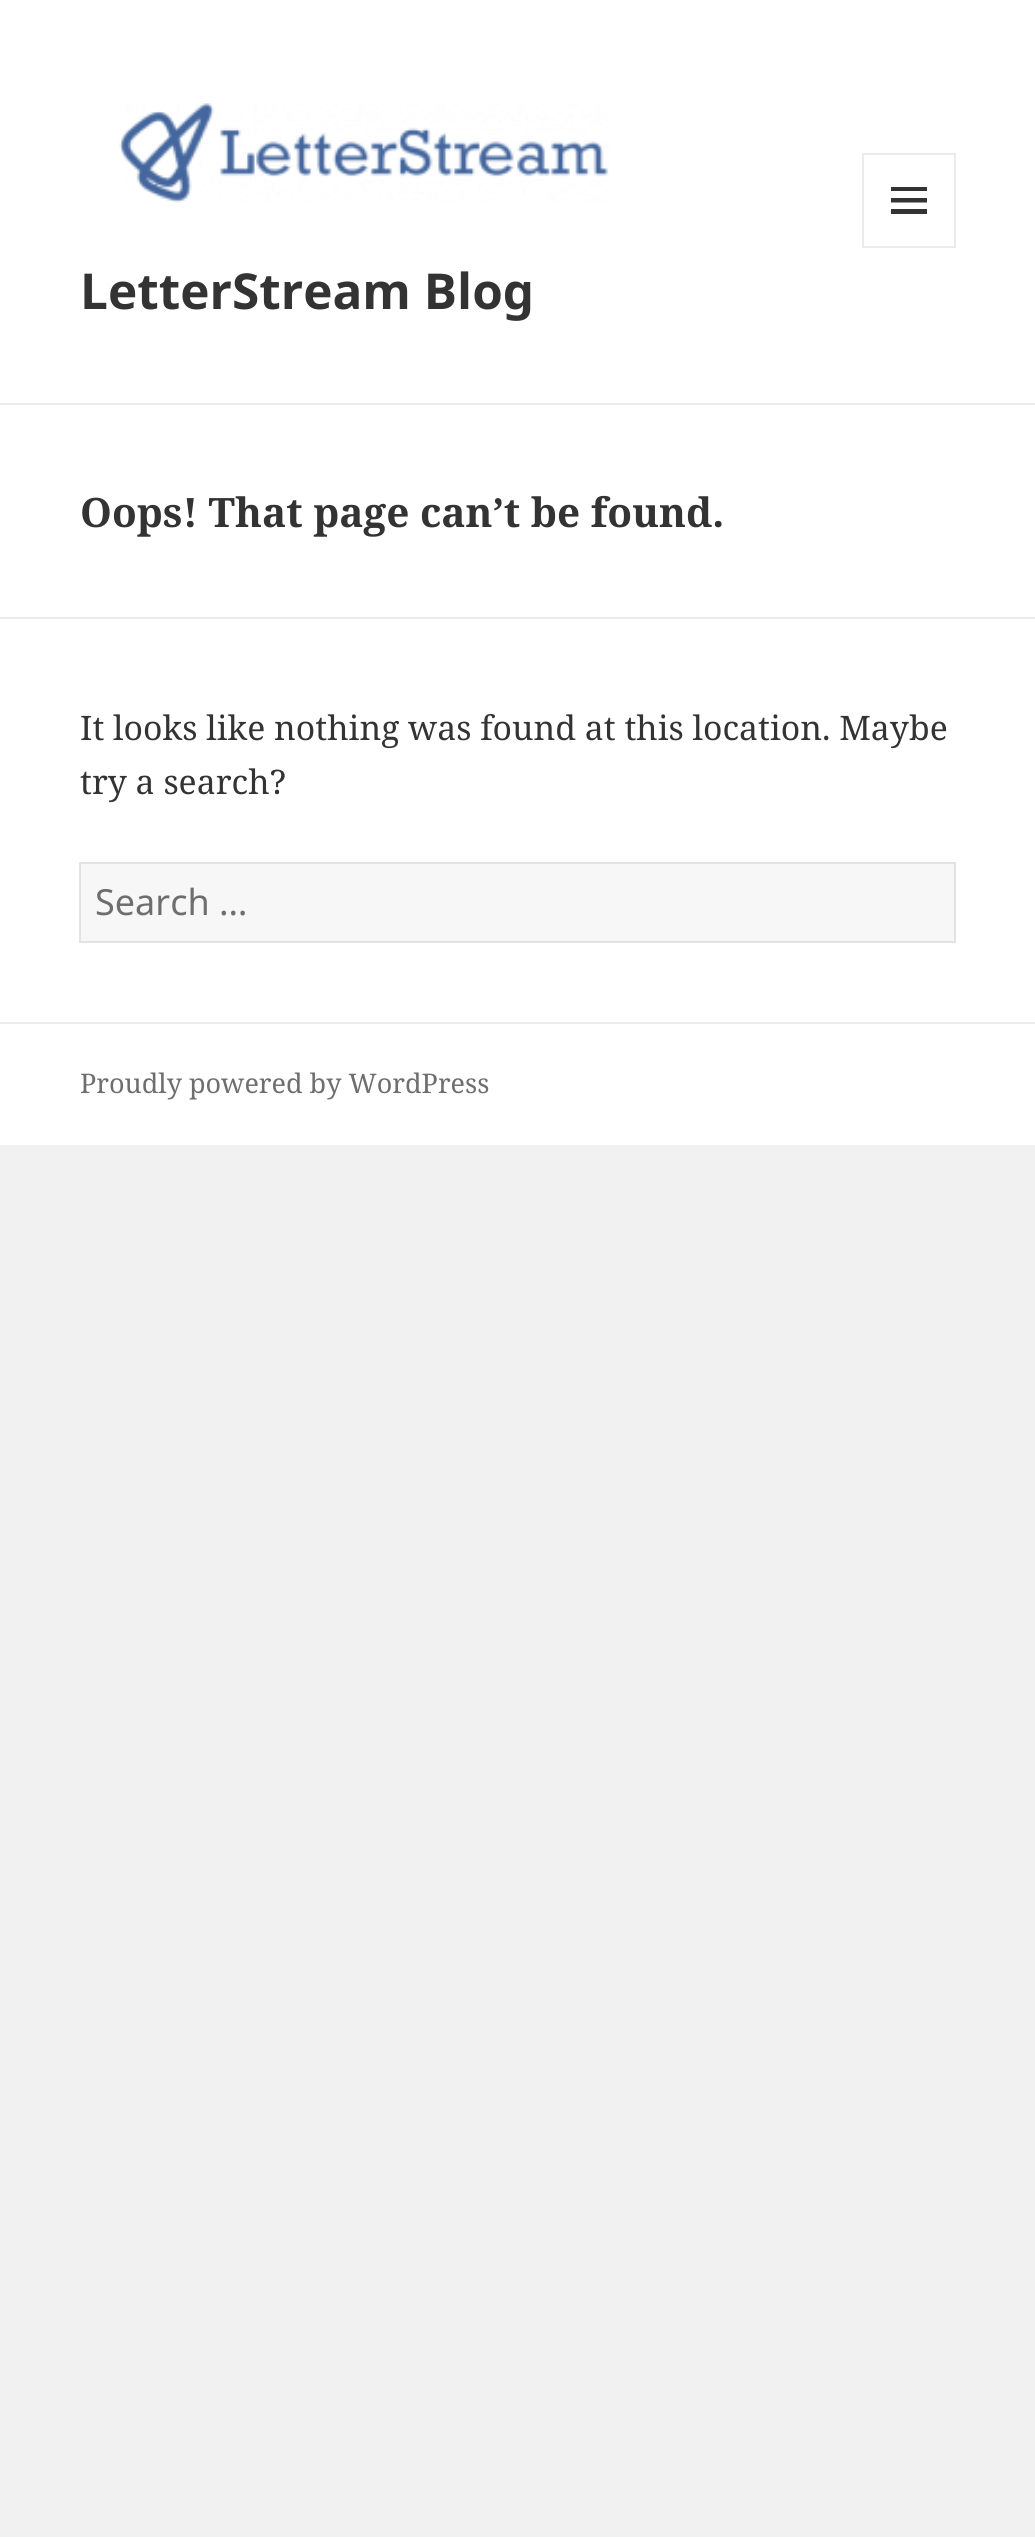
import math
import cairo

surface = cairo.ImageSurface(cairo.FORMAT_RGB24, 1035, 2537)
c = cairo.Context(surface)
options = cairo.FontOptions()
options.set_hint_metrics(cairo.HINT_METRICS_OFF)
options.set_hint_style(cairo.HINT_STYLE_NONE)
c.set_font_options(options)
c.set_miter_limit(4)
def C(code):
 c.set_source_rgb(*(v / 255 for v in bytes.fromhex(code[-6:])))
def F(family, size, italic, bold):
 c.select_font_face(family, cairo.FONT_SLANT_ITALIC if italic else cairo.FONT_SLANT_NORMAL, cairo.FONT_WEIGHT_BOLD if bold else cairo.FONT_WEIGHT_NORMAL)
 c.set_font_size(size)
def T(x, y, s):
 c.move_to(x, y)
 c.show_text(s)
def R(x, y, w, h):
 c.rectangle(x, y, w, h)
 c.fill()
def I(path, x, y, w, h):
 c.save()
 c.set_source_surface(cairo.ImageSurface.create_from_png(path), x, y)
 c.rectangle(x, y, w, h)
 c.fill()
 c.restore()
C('f1f1f1')
c.paint()
C('ffffff')
R(0,0,1035,403)
C('ebebeb')
R(0,403,1035,2)
I('1.png',119,103,490,100)
c.rectangle(863,154,92,93)
c.stroke()
C('333333')
c.new_path()
c.move_to(891,214)
c.line_to(891,209)
c.line_to(927,209)
c.line_to(927,214)
c.close_path()
c.move_to(891,187)
c.line_to(927,187)
c.line_to(927,191)
c.line_to(891,191)
c.close_path()
c.move_to(891,202.5)
c.line_to(891,198)
c.line_to(927,198)
c.line_to(927,202.5)
c.close_path()
c.fill()
F('Noto Sans',49.5,0,1)
T(80,309,'LetterStream Blog')
C('ffffff')
R(0,405,1035,212)
C('ebebeb')
R(0,617,1035,2)
F('Noto Serif',40.5,0,1)
C('333333')
T(80,527,'Oops! That page can’t be found.')
C('ffffff')
R(0,619,1035,403)
F('Noto Serif',33.75,0,0)
C('333333')
T(80,740,'It looks like nothing was found at this location. Maybe')
T(80,794,'try a search?')
C('f7f7f7')
c.rectangle(80,863,875,79)
c.fill_preserve()
C('e3e3e3')
c.stroke()
F('Noto Sans',36,0,0)
C('6e6e6e')
T(95,915,'Search …')
C('ffffff')
R(0,1024,1035,121)
C('ebebeb')
R(0,1022,1035,2)
F('Noto Serif',27,0,0)
C('6e6e6e')
T(80,1093,'Proudly powered by WordPress')
surface.write_to_png('o.png')
